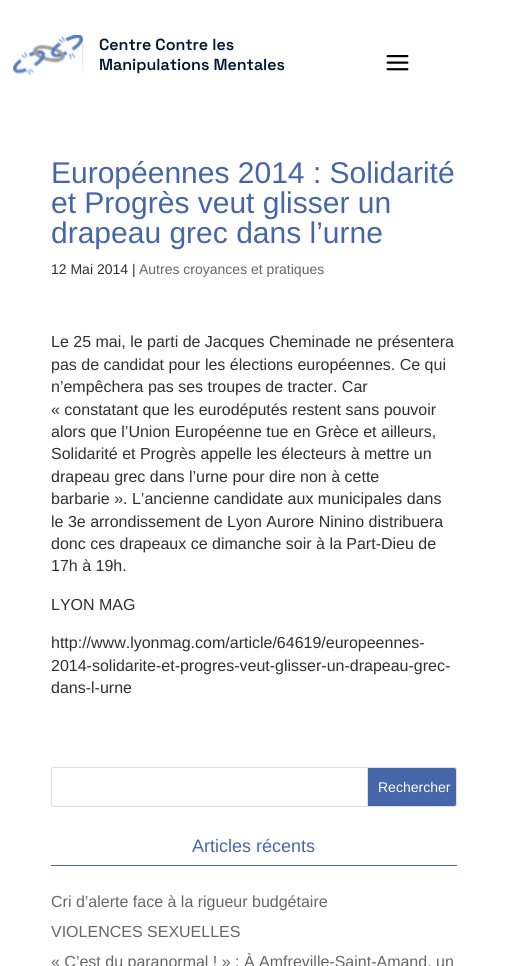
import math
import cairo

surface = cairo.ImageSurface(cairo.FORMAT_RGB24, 508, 966)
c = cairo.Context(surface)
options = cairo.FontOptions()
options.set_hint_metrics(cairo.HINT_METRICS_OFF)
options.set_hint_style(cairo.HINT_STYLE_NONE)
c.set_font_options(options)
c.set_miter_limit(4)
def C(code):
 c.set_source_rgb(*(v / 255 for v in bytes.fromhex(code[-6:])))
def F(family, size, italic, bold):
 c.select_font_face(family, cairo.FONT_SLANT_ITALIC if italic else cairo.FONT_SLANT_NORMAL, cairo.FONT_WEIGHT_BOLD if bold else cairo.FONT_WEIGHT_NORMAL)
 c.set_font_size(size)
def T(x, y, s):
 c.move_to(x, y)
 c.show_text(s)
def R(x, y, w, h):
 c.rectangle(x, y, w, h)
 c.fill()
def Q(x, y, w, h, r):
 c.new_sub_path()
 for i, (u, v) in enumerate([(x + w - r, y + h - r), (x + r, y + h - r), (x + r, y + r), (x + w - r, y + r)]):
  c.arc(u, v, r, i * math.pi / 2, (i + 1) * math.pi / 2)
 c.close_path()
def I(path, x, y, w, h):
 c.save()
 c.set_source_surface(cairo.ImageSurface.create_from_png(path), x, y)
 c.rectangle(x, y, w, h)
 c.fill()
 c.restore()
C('ffffff')
c.paint()
I('1.png',13,35,71,40)
F('Space Grotesk SemiBold',16,0,0)
C('001534')
T(99,50,'Centre Contre les')
T(99,70,'Manipulations Mentales')
I('2.png',386,55,23,16)
F('Liberation Sans',30,0,0)
C('4666aa')
T(51,183,'Européennes 2014 : Solidarité')
T(51,213,'et Progrès veut glisser un')
T(51,243,'drapeau grec dans l’urne')
F('Liberation Sans',14,0,0)
C('303030')
T(51,274,'12 Mai 2014 |')
C('666666')
T(139,274,'Autres croyances et pratiques')
F('Liberation Sans',16,0,0)
C('303030')
T(51,347,'Le 25 mai, le parti de Jacques Cheminade ne présentera')
T(51,370,'pas de candidat pour les élections européennes. Ce qui')
T(51,392,'n’empêchera pas ses troupes de tracter. Car')
T(51,415,'« constatant que les eurodéputés restent sans pouvoir')
T(51,437,'alors que l’Union Européenne tue en Grèce et ailleurs,')
T(51,459,'Solidarité et Progrès appelle les électeurs à mettre un')
T(51,482,'drapeau grec dans l’urne pour dire non à cette')
T(51,504,'barbarie ». L’ancienne candidate aux municipales dans')
T(51,527,'le 3e arrondissement de Lyon Aurore Ninino distribuera')
T(51,549,'donc ces drapeaux ce dimanche soir à la Part-Dieu de')
T(51,571,'17h à 19h.')
T(51,610,'LYON MAG')
T(51,648,'http://www.lyonmag.com/article/64619/europeennes-')
T(51,671,'2014-solidarite-et-progres-veut-glisser-un-drapeau-grec-')
T(51,693,'dans-l-urne')
Q(51.5,767.5,405,39,2.5)
C('dddddd')
c.set_line_width(1)
c.stroke()
C('4666aa')
c.new_path()
c.move_to(367.5,767.5)
c.line_to(454,767.5)
c.curve_to(455.5,767.5,456.5,768.5,456.5,770)
c.line_to(456.5,804)
c.curve_to(456.5,805.5,455.5,806.5,454,806.5)
c.line_to(367.5,806.5)
c.close_path()
c.fill_preserve()
C('dddddd')
c.stroke()
F('Liberation Sans',14,0,0)
C('ffffff')
T(378,792,'Rechercher')
C('4666aa')
R(51,865,406,1)
F('Liberation Sans',18,0,0)
T(192,852,'Articles récents')
F('Liberation Sans',16,0,0)
C('666666')
T(51,907,'Cri d’alerte face à la rigueur budgétaire')
T(51,937,'VIOLENCES SEXUELLES')
T(51,967,'« C’est du paranormal ! » : À Amfreville-Saint-Amand, un')
surface.write_to_png('o.png')
